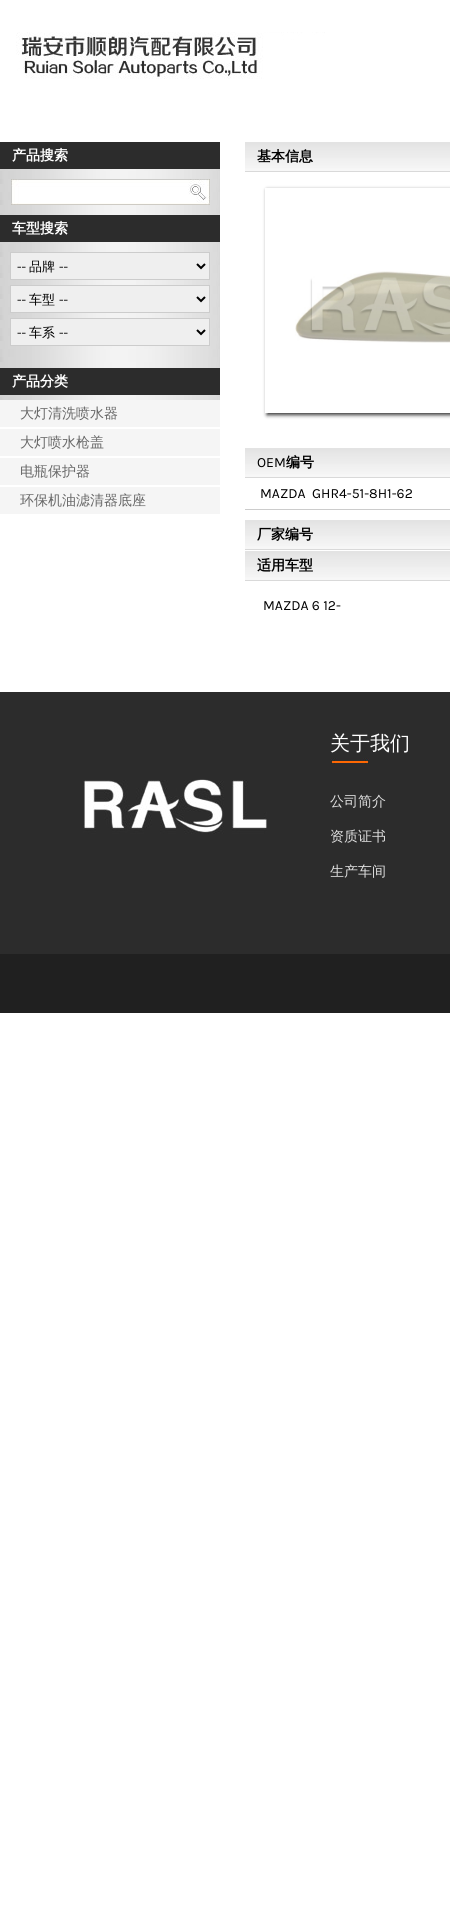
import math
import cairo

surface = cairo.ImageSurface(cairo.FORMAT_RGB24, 450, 1916)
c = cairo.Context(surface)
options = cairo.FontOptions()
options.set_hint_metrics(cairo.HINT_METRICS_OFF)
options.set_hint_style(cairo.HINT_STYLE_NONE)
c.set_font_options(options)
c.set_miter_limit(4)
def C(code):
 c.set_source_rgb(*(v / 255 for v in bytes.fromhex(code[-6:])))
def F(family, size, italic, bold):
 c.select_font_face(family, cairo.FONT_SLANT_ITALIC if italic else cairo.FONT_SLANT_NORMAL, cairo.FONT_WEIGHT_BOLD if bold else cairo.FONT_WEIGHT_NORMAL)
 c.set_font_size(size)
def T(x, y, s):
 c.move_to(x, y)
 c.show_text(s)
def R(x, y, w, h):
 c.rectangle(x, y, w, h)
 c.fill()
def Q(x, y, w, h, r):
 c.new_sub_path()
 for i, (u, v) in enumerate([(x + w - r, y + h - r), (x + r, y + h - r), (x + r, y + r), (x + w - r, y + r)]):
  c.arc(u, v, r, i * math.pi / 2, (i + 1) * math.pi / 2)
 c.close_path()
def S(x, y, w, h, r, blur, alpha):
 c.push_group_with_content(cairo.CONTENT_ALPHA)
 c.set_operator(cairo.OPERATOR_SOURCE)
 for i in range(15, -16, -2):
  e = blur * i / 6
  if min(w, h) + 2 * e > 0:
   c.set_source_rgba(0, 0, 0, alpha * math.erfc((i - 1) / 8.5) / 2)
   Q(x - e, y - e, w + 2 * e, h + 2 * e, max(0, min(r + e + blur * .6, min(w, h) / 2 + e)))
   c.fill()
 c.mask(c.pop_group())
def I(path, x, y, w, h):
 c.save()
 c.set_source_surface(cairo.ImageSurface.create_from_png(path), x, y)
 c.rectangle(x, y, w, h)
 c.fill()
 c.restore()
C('ffffff')
c.paint()
I('1.png',16,32,309,47)
I('2.png',0,169,220,46)
C('2c2c2c')
R(0,142,220,27)
F('WenQuanYi Zen Hei',14,0,1)
C('ffffff')
T(12,160,'产品搜索')
I('3.png',11,179,177,26)
I('4.png',188,179,22,26)
I('5.png',0,242,220,126)
C('2c2c2c')
R(0,215,220,27)
C('ffffff')
T(12,233,'车型搜索')
C('efefef')
c.rectangle(10.5,252.5,199,27)
c.fill_preserve()
C('cccccc')
c.set_line_width(1)
c.stroke()
c.new_path()
c.move_to(197,264)
c.line_to(201,268)
c.line_to(205,264)
C('000000')
c.set_line_width(2)
c.stroke()
F('Karla',13,0,0)
T(17,271,'--')
F('WenQuanYi Zen Hei Medium',13,0,0)
T(29,271,'品牌')
F('Karla',13,0,0)
T(59,271,'--')
C('efefef')
c.rectangle(10.5,285.5,199,27)
c.fill_preserve()
C('cccccc')
c.set_line_width(1)
c.stroke()
c.new_path()
c.move_to(197,297)
c.line_to(201,301)
c.line_to(205,297)
C('000000')
c.set_line_width(2)
c.stroke()
T(17,304,'--')
F('WenQuanYi Zen Hei Medium',13,0,0)
T(29,304,'车型')
F('Karla',13,0,0)
T(59,304,'--')
C('efefef')
c.rectangle(10.5,318.5,199,27)
c.fill_preserve()
C('cccccc')
c.set_line_width(1)
c.stroke()
c.new_path()
c.move_to(197,330)
c.line_to(201,334)
c.line_to(205,330)
C('000000')
c.set_line_width(2)
c.stroke()
T(17,337,'--')
F('WenQuanYi Zen Hei Medium',13,0,0)
T(29,337,'车系')
F('Karla',13,0,0)
T(59,337,'--')
I('6.png',0,395,220,5)
C('2c2c2c')
R(0,368,220,27)
F('WenQuanYi Zen Hei',14,0,1)
C('ffffff')
T(12,386,'产品分类')
C('f5f5f5')
R(0,400,220,27)
F('WenQuanYi Zen Hei Medium',14,0,0)
C('666666')
T(20,418,'大灯清洗喷水器')
C('f5f5f5')
R(0,429,220,27)
C('666666')
T(20,447,'大灯喷水枪盖')
C('f5f5f5')
R(0,458,220,27)
C('666666')
T(20,476,'电瓶保护器')
C('f5f5f5')
R(0,487,220,27)
C('666666')
T(20,505,'环保机油滤清器底座')
I('7.png',245,142,205,30)
F('WenQuanYi Zen Hei',14,0,1)
C('000000')
T(257,161,'基本信息')
c.save()
c.set_fill_rule(cairo.FILL_RULE_EVEN_ODD)
c.new_path()
c.move_to(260,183)
c.line_to(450,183)
c.line_to(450,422)
c.line_to(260,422)
c.close_path()
c.move_to(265,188)
c.line_to(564,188)
c.line_to(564,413)
c.line_to(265,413)
c.close_path()
c.clip()
C('333333')
S(267,190,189,225,0,2,1)
c.restore()
I('8.png',295,271,155,72)
I('7.png',245,448,205,30)
F('Karla',14,0,0)
T(257,467,'OEM')
F('WenQuanYi Zen Hei',14,0,1)
T(286,467,'编号')
C('cccccc')
R(245,509,205,1)
F('Karla',14,0,0)
C('000000')
T(260,498,'MAZDA')
T(312,498,'GHR4-51-8H1-62')
I('7.png',245,520,205,30)
F('WenQuanYi Zen Hei',14,0,1)
T(257,539,'厂家编号')
I('7.png',245,551,205,30)
T(257,570,'适用车型')
F('Karla',14,0,0)
T(263,610,'MAZDA 6 12-')
C('2c2c2c')
R(0,692,450,262)
I('9.png',83,779,184,55)
I('10.png',330,758,40,6)
F('WenQuanYi Zen Hei Medium',20,0,0)
C('ffffff')
T(330,750,'关于我们')
F('WenQuanYi Zen Hei Medium',14,0,0)
C('dfdfdf')
T(330,806,'公司简介')
T(330,841,'资质证书')
T(330,876,'生产车间')
C('202020')
R(0,954,450,59)
surface.write_to_png('o.png')
